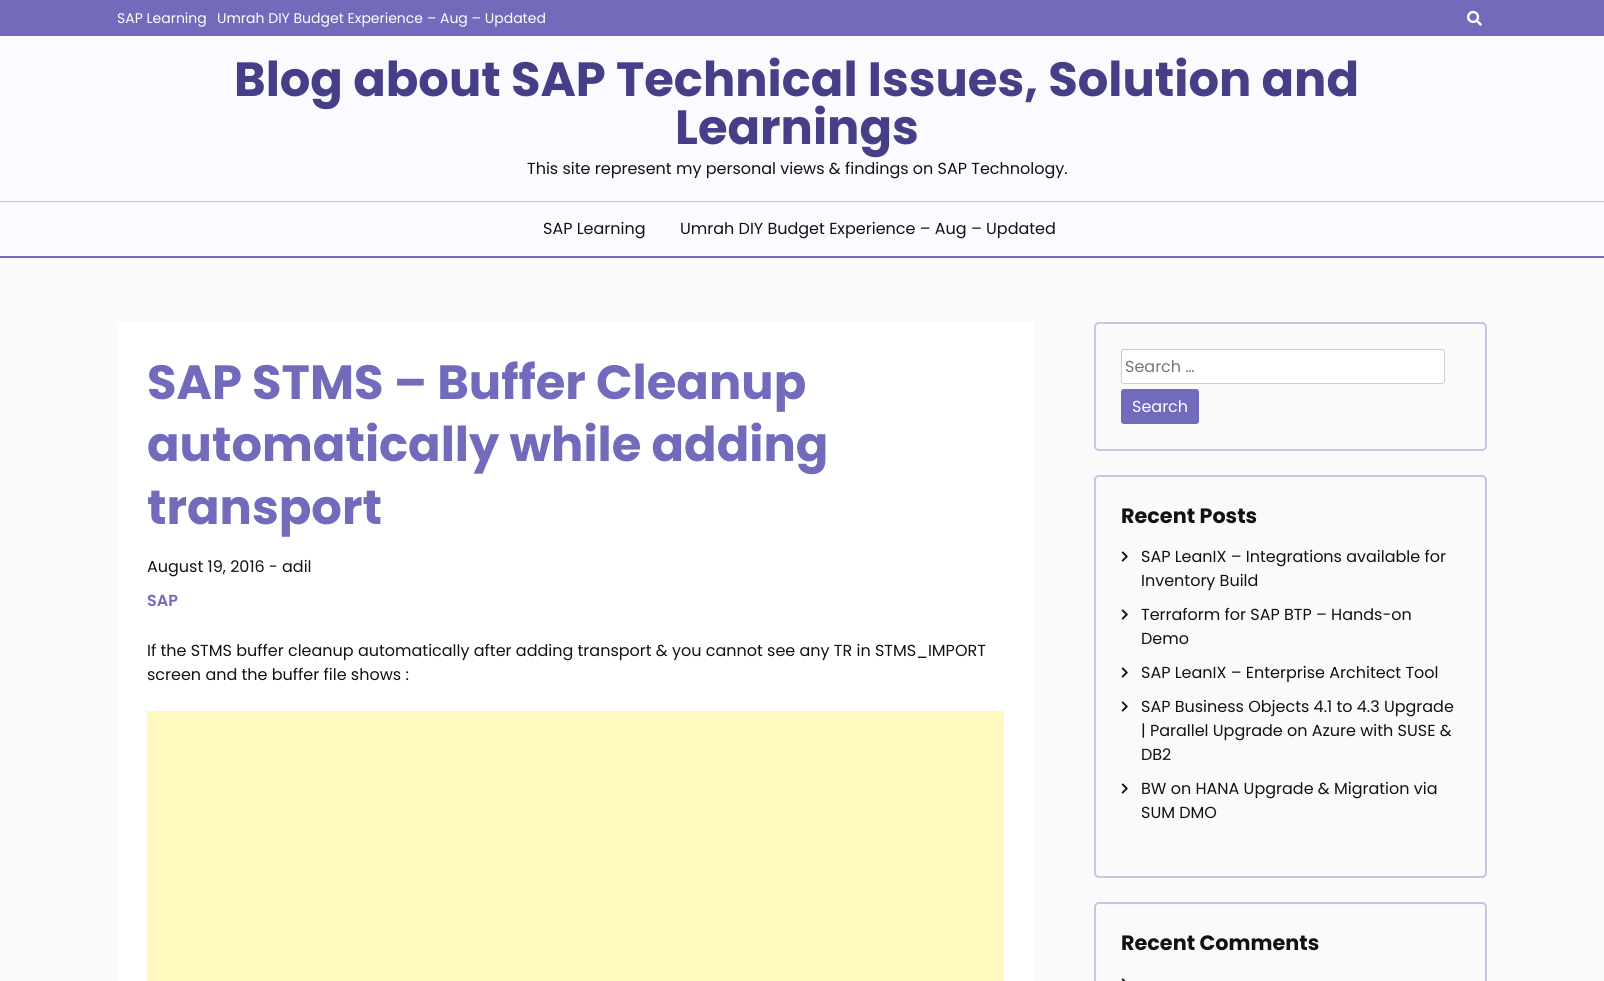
import math
import cairo

surface = cairo.ImageSurface(cairo.FORMAT_RGB24, 1604, 981)
c = cairo.Context(surface)
options = cairo.FontOptions()
options.set_hint_metrics(cairo.HINT_METRICS_OFF)
options.set_hint_style(cairo.HINT_STYLE_NONE)
c.set_font_options(options)
c.set_miter_limit(4)
def C(code):
 c.set_source_rgb(*(v / 255 for v in bytes.fromhex(code[-6:])))
def F(family, size, italic, bold):
 c.select_font_face(family, cairo.FONT_SLANT_ITALIC if italic else cairo.FONT_SLANT_NORMAL, cairo.FONT_WEIGHT_BOLD if bold else cairo.FONT_WEIGHT_NORMAL)
 c.set_font_size(size)
def T(x, y, s):
 c.move_to(x, y)
 c.show_text(s)
def R(x, y, w, h):
 c.rectangle(x, y, w, h)
 c.fill()
def Q(x, y, w, h, r):
 c.new_sub_path()
 for i, (u, v) in enumerate([(x + w - r, y + h - r), (x + r, y + h - r), (x + r, y + r), (x + w - r, y + r)]):
  c.arc(u, v, r, i * math.pi / 2, (i + 1) * math.pi / 2)
 c.close_path()
def I(path, x, y, w, h):
 c.save()
 c.set_source_surface(cairo.ImageSurface.create_from_png(path), x, y)
 c.rectangle(x, y, w, h)
 c.fill()
 c.restore()
C('fafafa')
c.paint()
C('726abb')
R(0,0,1604,36)
F('Poppins',14,0,0)
C('ffffff')
T(117,23,'SAP Learning')
T(217,23,'Umrah DIY Budget Experience – Aug – Updated')
I('1.png',1467,10,15,16)
C('fafaff')
R(0,36,1604,220)
F('Poppins',48,0,1)
C('463f87')
T(234,96,'Blog about SAP Technical Issues, Solution and')
T(675,144,'Learnings')
F('Poppins',16,0,0)
C('121212')
T(527,174,'This site represent my personal views & findings on SAP Technology.')
C('c8c4e5')
R(0,201,1604,1)
C('726abb')
R(0,256,1604,2)
C('121212')
T(543,234,'SAP Learning')
T(680,234,'Umrah DIY Budget Experience – Aug – Updated')
C('ffffff')
R(117,322,917,659)
F('Poppins',48,0,1)
C('726abb')
T(147,399,'SAP STMS – Buffer Cleanup')
T(147,461,'automatically while adding')
T(147,524,'transport')
F('Poppins',16,0,0)
C('121212')
T(147,572,'August 19, 2016 - adil')
F('Poppins SemiBold',16,0,0)
C('726abb')
T(147,606,'SAP')
F('Poppins',16,0,0)
C('121212')
T(147,656,'If the STMS buffer cleanup automatically after adding transport & you cannot see any TR in STMS_IMPORT')
T(147,680,'screen and the buffer file shows :')
C('fff9c0')
R(147,711,857,270)
Q(1095,323,391,127,4)
C('c8c4e5')
c.stroke()
C('ffffff')
Q(1121.5,349.5,323,34,2.5)
c.fill_preserve()
C('cccccc')
c.set_line_width(1)
c.stroke()
C('757575')
T(1125,372,'Search …')
C('726abb')
Q(1121.5,389.5,77,34,2.5)
c.fill_preserve()
c.stroke()
C('ffffff')
T(1132,412,'Search')
Q(1095,476,391,401,4)
C('c8c4e5')
c.set_line_width(2)
c.stroke()
F('Poppins',20.75,0,1)
C('121212')
T(1121,523,'Recent Posts')
I('2.png',1121,551,7,11)
F('Poppins',16,0,0)
T(1141,562,'SAP LeanIX – Integrations available for')
T(1141,586,'Inventory Build')
I('2.png',1121,609,7,11)
T(1141,620,'Terraform for SAP BTP – Hands-on')
T(1141,644,'Demo')
I('2.png',1121,667,7,11)
T(1141,678,'SAP LeanIX – Enterprise Architect Tool')
I('2.png',1121,701,7,11)
T(1141,712,'SAP Business Objects 4.1 to 4.3 Upgrade')
T(1141,736,'| Parallel Upgrade on Azure with SUSE &')
T(1141,760,'DB2')
I('2.png',1121,783,7,11)
T(1141,794,'BW on HANA Upgrade & Migration via')
T(1141,818,'SUM DMO')
Q(1095,903,391,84,4)
C('c8c4e5')
c.stroke()
F('Poppins',20.75,0,1)
C('121212')
T(1121,950,'Recent Comments')
I('3.png',1121,978,5,3)
surface.write_to_png('o.png')
